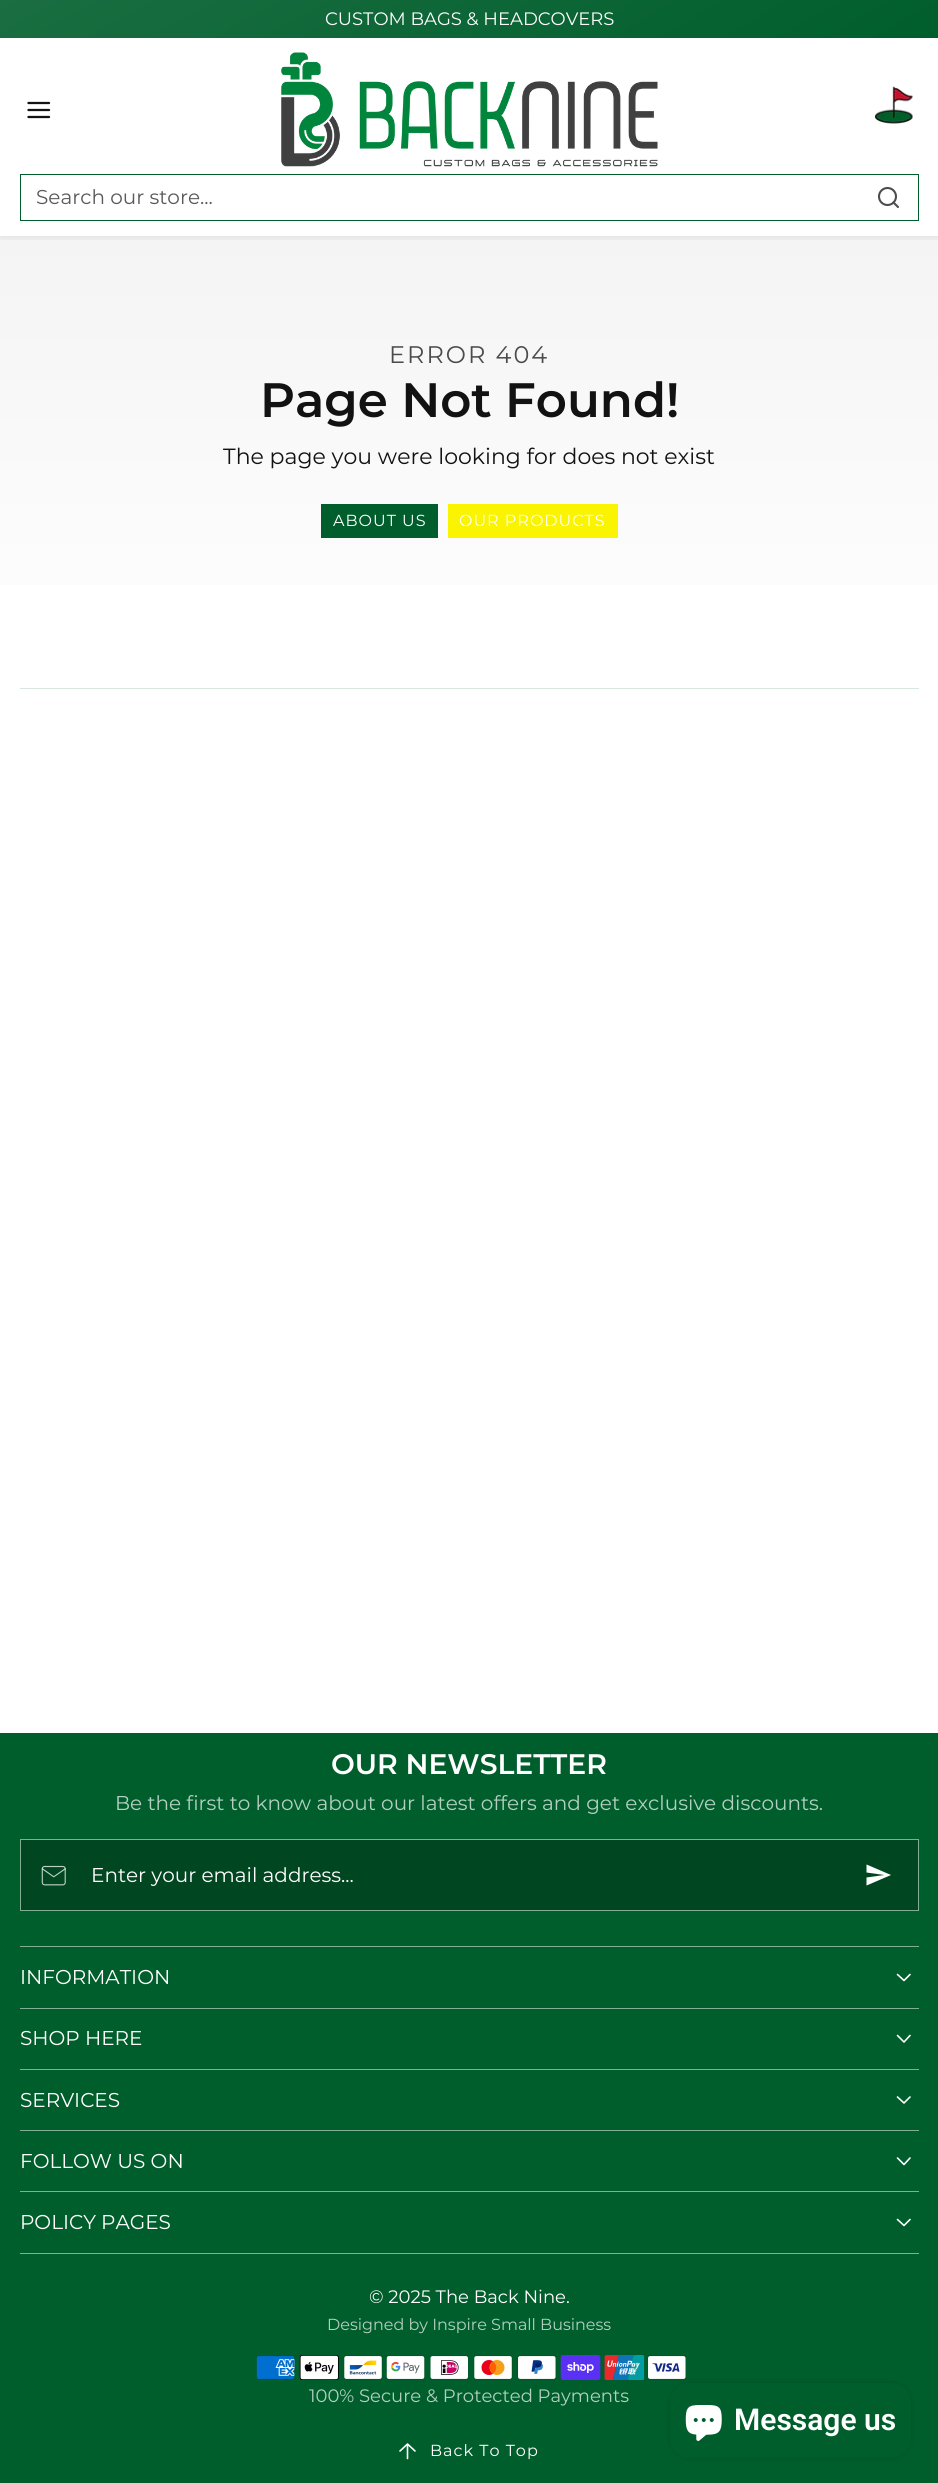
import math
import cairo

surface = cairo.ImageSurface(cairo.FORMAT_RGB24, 938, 2483)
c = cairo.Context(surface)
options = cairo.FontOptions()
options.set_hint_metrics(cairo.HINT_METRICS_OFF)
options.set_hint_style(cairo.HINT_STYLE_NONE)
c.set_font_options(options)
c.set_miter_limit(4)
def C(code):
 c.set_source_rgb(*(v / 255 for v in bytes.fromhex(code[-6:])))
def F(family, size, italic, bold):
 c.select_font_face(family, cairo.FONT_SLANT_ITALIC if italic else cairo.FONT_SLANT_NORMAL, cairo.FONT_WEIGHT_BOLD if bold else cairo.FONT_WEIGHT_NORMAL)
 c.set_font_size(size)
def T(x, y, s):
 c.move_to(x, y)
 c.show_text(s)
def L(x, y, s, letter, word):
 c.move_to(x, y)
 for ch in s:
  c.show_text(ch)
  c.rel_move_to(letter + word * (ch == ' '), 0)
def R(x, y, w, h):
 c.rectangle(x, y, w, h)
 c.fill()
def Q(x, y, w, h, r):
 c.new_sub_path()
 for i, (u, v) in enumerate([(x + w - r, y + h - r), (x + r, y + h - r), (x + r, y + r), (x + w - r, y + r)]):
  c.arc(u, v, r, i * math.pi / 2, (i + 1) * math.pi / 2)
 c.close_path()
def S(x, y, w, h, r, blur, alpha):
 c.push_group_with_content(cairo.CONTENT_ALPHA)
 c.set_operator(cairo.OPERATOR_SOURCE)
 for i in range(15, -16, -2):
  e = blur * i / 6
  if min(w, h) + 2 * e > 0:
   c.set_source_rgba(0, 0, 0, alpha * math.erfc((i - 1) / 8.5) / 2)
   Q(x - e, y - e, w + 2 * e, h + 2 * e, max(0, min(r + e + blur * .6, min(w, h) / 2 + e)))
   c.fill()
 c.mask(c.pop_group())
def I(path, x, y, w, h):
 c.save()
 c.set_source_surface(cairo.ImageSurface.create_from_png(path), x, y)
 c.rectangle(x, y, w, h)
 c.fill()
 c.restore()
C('ffffff')
c.paint()
gradient = cairo.LinearGradient(344,-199,595,236)
gradient.add_color_stop_rgba(0,0.102,0.431,0.255,1)
gradient.add_color_stop_rgba(1,0,0.369,0.173,1)
c.set_source(gradient)
R(0,0,938,38)
F('Montserrat',18,0,0)
C('ffffff')
T(325,25,'CUSTOM BAGS & HEADCOVERS')
gradient = cairo.LinearGradient(469,236,469,688)
gradient.add_color_stop_rgba(0,0.957,0.957,0.957,1)
gradient.add_color_stop_rgba(1,1,1,1,1)
c.set_source(gradient)
R(0,236,938,349)
c.save()
c.rectangle(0,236,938,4)
c.clip()
C('121212')
S(0,40,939,199,0,2.5,.07)
c.restore()
c.new_path()
c.move_to(28.5,110)
c.line_to(49,110)
c.move_to(28.5,103)
c.line_to(49,103)
c.move_to(28.5,117)
c.line_to(49,117)
C('121212')
c.set_line_width(2.3)
c.set_line_cap(cairo.LINE_CAP_ROUND)
c.set_line_join(cairo.LINE_JOIN_ROUND)
c.stroke()
I('1.png',281,52,377,115)
I('2.png',875,86,38,38)
c.rectangle(20.5,174.5,898,46)
C('005e2c')
c.set_line_width(1)
c.set_line_cap(cairo.LINE_CAP_BUTT)
c.set_line_join(cairo.LINE_JOIN_MITER)
c.stroke()
F('Montserrat',20,0,0)
C('595959')
T(36,204,'Search our store...')
c.new_path()
c.arc(887.5,196.5,8.5,0,2 * math.pi)
C('4d4d4d')
c.set_line_width(2.1)
c.stroke()
c.new_path()
c.move_to(898,207)
c.line_to(893.5,202.5)
c.set_line_cap(cairo.LINE_CAP_ROUND)
c.set_line_join(cairo.LINE_JOIN_ROUND)
c.stroke()
F('Montserrat',24,0,0)
C('4b4b4b')
L(389,363,'ERROR 404',2,0)
F('Montserrat SemiBold',48.25,0,0)
C('121212')
T(260,417,'Page Not Found!')
F('Montserrat',22,0,0)
T(223,464,'The page you were looking for does not exist')
C('005e2c')
R(321,504,117,34)
F('Montserrat',16,0,0)
C('ffffff')
L(333,526,'ABOUT US',1,0)
C('faf400')
R(448,504,170,34)
C('ffffff')
L(459,526,'OUR PRODUCTS',1,0)
C('d9e7df')
R(20,688,899,1)
C('005e2c')
R(0,1733,938,750)
F('Montserrat SemiBold',28.25,0,0)
C('ffffff')
T(331,1774,'OUR NEWSLETTER')
F('Montserrat',20,0,0)
C('b3cfc0')
T(115,1810,'Be the first to know about our latest offers and get exclusive discounts.')
C('004721')
c.rectangle(20.5,1839.5,898,71)
c.fill_preserve()
C('80af96')
c.set_line_width(1)
c.set_line_cap(cairo.LINE_CAP_BUTT)
c.set_line_join(cairo.LINE_JOIN_MITER)
c.stroke()
I('3.png',41,1865,25,21)
C('ffffff')
T(91,1882,'Enter your email address...')
c.set_fill_rule(cairo.FILL_RULE_EVEN_ODD)
c.new_path()
c.move_to(866.5,1864.5)
c.line_to(866.5,1872.5)
c.line_to(884,1875)
c.line_to(866.5,1877.5)
c.line_to(866.5,1885.5)
c.line_to(891,1875)
c.close_path()
c.fill()
C('80af96')
R(20,1946,899,1)
R(20,2008,899,1)
C('ffffff')
T(20,1984,'INFORMATION')
c.new_path()
c.move_to(897.5,1974.5)
c.line_to(904,1980.5)
c.line_to(910,1974.5)
c.set_line_width(1.6)
c.set_line_cap(cairo.LINE_CAP_ROUND)
c.set_line_join(cairo.LINE_JOIN_ROUND)
c.stroke()
C('80af96')
R(20,2069,899,1)
C('ffffff')
T(20,2045,'SHOP HERE')
c.new_path()
c.move_to(897.5,2035.5)
c.line_to(904,2042)
c.line_to(910,2035.5)
c.stroke()
C('80af96')
R(20,2130,899,1)
C('ffffff')
T(20,2107,'SERVICES')
c.new_path()
c.move_to(897.5,2097)
c.line_to(904,2103)
c.line_to(910,2097)
c.stroke()
C('80af96')
R(20,2191,899,1)
C('ffffff')
T(20,2168,'FOLLOW US ON')
c.new_path()
c.move_to(897.5,2158)
c.line_to(904,2164.5)
c.line_to(910,2158)
c.stroke()
C('80af96')
R(20,2253,899,1)
C('ffffff')
T(20,2229,'POLICY PAGES')
c.new_path()
c.move_to(897.5,2219.5)
c.line_to(904,2225.5)
c.line_to(910,2219.5)
c.stroke()
F('Montserrat',18,0,0)
T(369,2303,'© 2025 The Back Nine.')
F('Montserrat',16,0,0)
C('b3cfc0')
T(327,2330,'Designed by Inspire Small Business')
I('4.png',256,2355,39,25)
I('5.png',299,2355,40,25)
I('6.png',343,2355,40,25)
I('7.png',386,2355,39,25)
I('8.png',430,2355,39,25)
I('9.png',473,2355,40,25)
I('10.png',517,2355,39,25)
I('11.png',560,2355,41,25)
I('12.png',604,2355,41,25)
I('13.png',647,2355,39,25)
F('Montserrat',18,0,0)
T(309,2402,'100% Secure & Protected Payments')
c.new_path()
c.move_to(407.5,2458.5)
c.line_to(407.5,2445)
c.move_to(400,2451)
c.line_to(407.5,2444)
c.line_to(415,2451)
C('ffffff')
c.stroke()
F('Montserrat',16,0,0)
L(430,2456,'Back To Top',1,0)
C('000000')
S(670,2383,241,75,20,3,.15)
C('005e2c')
Q(670,2383,241,75,20)
c.fill()
I('14.png',685,2405,37,36)
F('Roboto SemiBold',30,0,0)
C('ffffff')
T(734,2430,'Message us')
surface.write_to_png('o.png')
